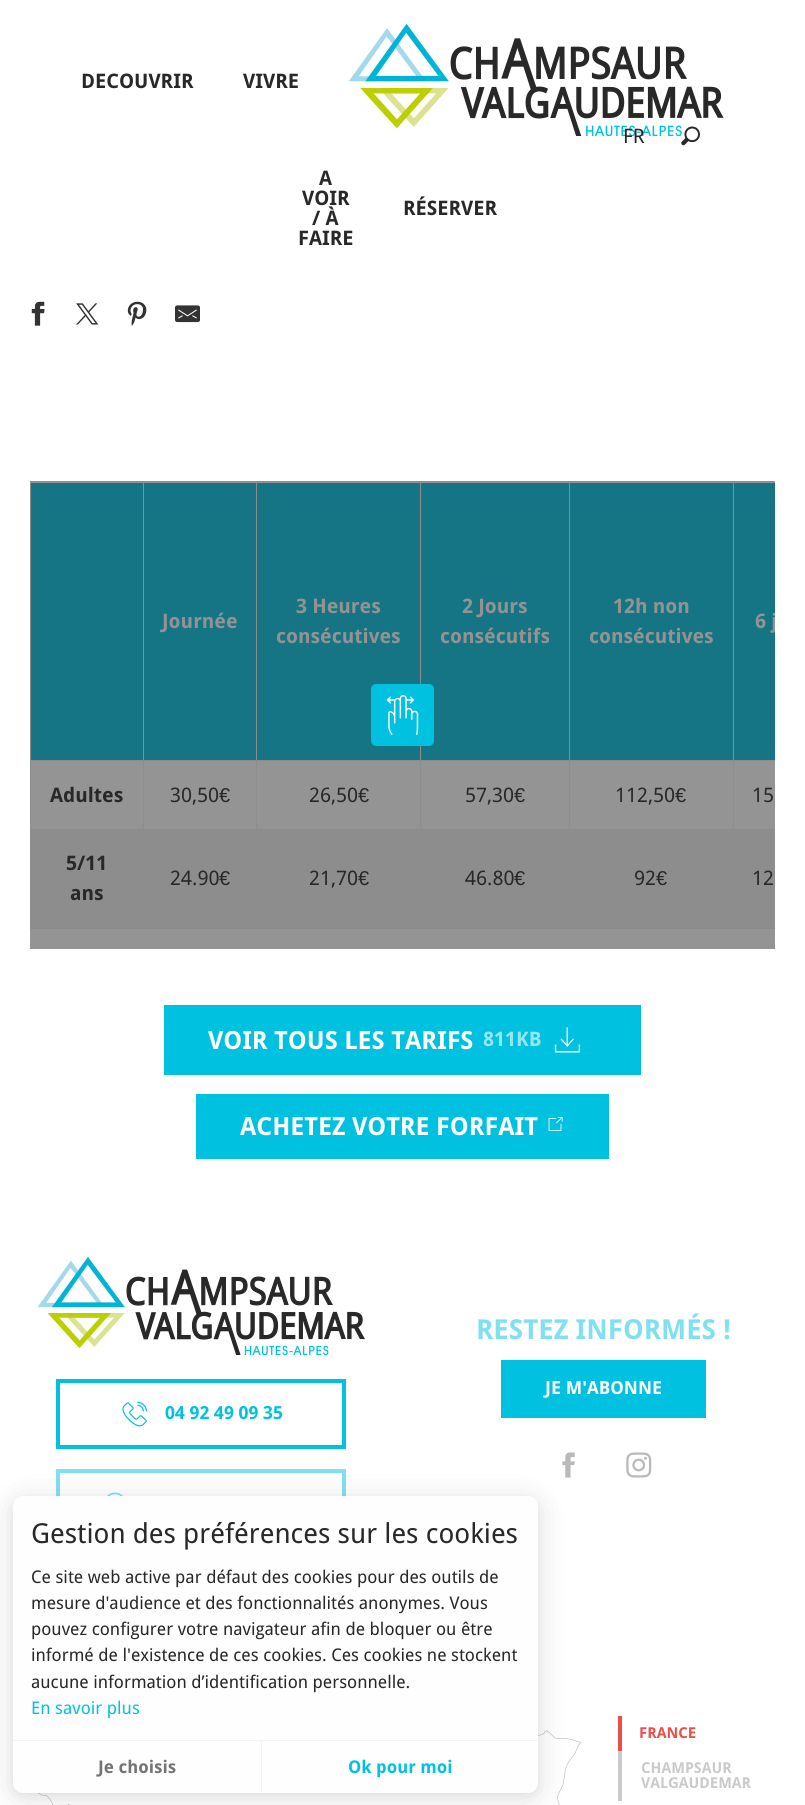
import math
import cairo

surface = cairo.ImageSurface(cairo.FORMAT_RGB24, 805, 1805)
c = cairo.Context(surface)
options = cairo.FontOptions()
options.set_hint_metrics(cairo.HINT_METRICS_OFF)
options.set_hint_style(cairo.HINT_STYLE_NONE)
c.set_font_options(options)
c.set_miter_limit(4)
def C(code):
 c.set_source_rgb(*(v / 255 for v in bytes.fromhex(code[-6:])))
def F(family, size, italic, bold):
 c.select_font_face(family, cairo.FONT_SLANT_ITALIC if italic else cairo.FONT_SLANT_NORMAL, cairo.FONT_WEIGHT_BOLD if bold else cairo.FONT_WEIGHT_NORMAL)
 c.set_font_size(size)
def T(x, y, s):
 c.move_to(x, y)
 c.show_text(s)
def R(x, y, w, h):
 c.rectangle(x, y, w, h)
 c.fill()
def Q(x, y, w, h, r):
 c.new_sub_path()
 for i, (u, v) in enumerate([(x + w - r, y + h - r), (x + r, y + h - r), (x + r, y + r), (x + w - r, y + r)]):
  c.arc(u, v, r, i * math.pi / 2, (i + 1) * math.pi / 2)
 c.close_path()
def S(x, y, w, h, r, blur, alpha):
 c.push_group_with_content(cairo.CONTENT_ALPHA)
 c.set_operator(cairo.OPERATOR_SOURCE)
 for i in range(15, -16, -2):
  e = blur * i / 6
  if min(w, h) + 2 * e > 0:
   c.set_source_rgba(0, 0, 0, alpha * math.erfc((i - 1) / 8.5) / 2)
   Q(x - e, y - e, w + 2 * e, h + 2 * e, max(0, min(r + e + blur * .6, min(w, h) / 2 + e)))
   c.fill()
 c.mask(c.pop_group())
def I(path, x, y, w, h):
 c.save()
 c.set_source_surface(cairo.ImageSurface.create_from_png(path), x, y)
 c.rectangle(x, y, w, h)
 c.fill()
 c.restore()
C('ffffff')
c.paint()
C('949494')
R(30,482,745,467)
F('Droid Sans',20,0,1)
C('282828')
T(81,88,'DECOUVRIR')
T(243,88,'VIVRE')
I('1.png',349,24,375,112)
T(319,185,'A')
T(302,205,'VOIR')
T(312,225,'/ À')
T(298,245,'FAIRE')
T(403,215,'RÉSERVER')
F('Droid Sans',20,0,0)
T(623,143,'FR')
I('2.png',681,126,19,20)
I('3.png',31,301,14,25)
I('4.png',76,303,23,22)
I('5.png',127,301,20,25)
I('6.png',175,305,25,18)
C('157584')
R(31,483,744,277)
C('8d8d8d')
R(30,481,745,1)
R(30,760,745,1)
R(30,760,1,69)
R(30,481,1,280)
F('Droid Sans',20,0,1)
C('939393')
T(162,628,'Journée')
T(296,613,'3 Heures')
T(276,643,'consécutives')
T(462,613,'2 Jours')
T(440,643,'consécutifs')
T(613,613,'12h non')
T(589,643,'consécutives')
c.save()
c.rectangle(30,481,745,468)
c.clip()
T(755,628,'6 j')
c.restore()
C('282828')
T(50,802,'Adultes')
C('8d8d8d')
R(30,829,745,1)
R(143,481,1,349)
F('Droid Sans',20,0,0)
C('282828')
T(170,802,'30,50')
F('Liberation Sans',20,0,0)
T(219,802,'€')
C('8d8d8d')
R(256,481,1,349)
F('Droid Sans',20,0,0)
C('282828')
T(309,802,'26,50')
F('Liberation Sans',20,0,0)
T(358,802,'€')
C('8d8d8d')
R(420,481,1,349)
F('Droid Sans',20,0,0)
C('282828')
T(465,802,'57,30')
F('Liberation Sans',20,0,0)
T(514,802,'€')
C('8d8d8d')
R(569,481,1,349)
F('Droid Sans',20,0,0)
C('282828')
T(615,802,'112,50')
F('Liberation Sans',20,0,0)
T(675,802,'€')
C('8d8d8d')
R(733,481,1,349)
F('Droid Sans',20,0,0)
C('282828')
T(752,802,'15')
C('8d8d8d')
R(31,830,744,98)
C('8b8b8b')
R(30,928,745,1)
C('8d8d8d')
R(30,829,1,100)
F('Droid Sans',20,0,1)
C('282828')
T(66,870,'5/11')
T(70,900,'ans')
F('Droid Sans',20,0,0)
T(170,885,'24.90')
F('Liberation Sans',20,0,0)
T(219,885,'€')
F('Droid Sans',20,0,0)
T(309,885,'21,70')
F('Liberation Sans',20,0,0)
T(358,885,'€')
F('Droid Sans',20,0,0)
T(465,885,'46.80')
F('Liberation Sans',20,0,0)
T(514,885,'€')
F('Droid Sans',20,0,0)
T(634,885,'92')
F('Liberation Sans',20,0,0)
T(656,885,'€')
F('Droid Sans',20,0,0)
T(752,885,'12')
C('01c1e0')
Q(371,684,63,62,5)
c.fill()
I('7.png',386,695,33,40)
R(164,1005,477,70)
F('Droid Sans',25,0,1)
C('fefefe')
T(208,1049,'VOIR TOUS LES TARIFS')
F('Droid Sans',20,0,1)
C('99e6f2')
T(483,1046,'811KB')
I('8.png',554,1027,26,26)
C('01c1e0')
R(196,1094,413,65)
F('Droid Sans',25,0,1)
C('fefefe')
T(240,1135,'ACHETEZ VOTRE FORFAIT')
I('9.png',548,1116,15,15)
F('Droid Sans',27.5,0,1)
C('80e0f0')
T(476,1339,'RESTEZ INFORMÉS !')
C('01c1e0')
R(501,1360,205,58)
F('Droid Sans',18,0,1)
C('fefefe')
T(545,1394,'JE M\'ABONNE')
I('10.png',562,1452,13,26)
I('11.png',626,1452,26,26)
I('12.png',38,1257,327,99)
c.rectangle(58,1381,286,66)
C('01c1e0')
c.set_line_width(4)
c.stroke()
I('13.png',122,1401,25,26)
T(165,1419,'04 92 49 09 35')
c.rectangle(58,1471,286,65)
C('80e0f0')
c.stroke()
I('14.png',107,1492,16,4)
I('15.png',37,1730,545,75)
C('eb4f4a')
R(618,1716,4,35)
F('Droid Sans',15,0,1)
T(639,1738,'FRANCE')
C('cacaca')
R(618,1751,4,50)
T(641,1773,'CHAMPSAUR')
T(641,1788,'VALGAUDEMAR')
C('282828')
S(13,1499,525,296,10,4,.05)
S(13,1501,525,297,10,15,.15)
C('fefefe')
Q(13,1496,525,297,10)
c.fill()
F('Droid Sans',27.5,0,0)
C('282828')
T(31,1543,'Gestion des préférences sur les cookies')
F('Droid Sans',17.5,0,0)
T(31,1583,'Ce site web active par défaut des cookies pour des outils de')
T(31,1609,'mesure d\'audience et des fonctionnalités anonymes. Vous')
T(31,1635,'pouvez configurer votre navigateur afin de bloquer ou être')
T(31,1661,'informé de l\'existence de ces cookies. Ces cookies ne stockent')
T(31,1688,'aucune information d’identification personnelle.')
C('01c1e0')
T(31,1714,'En savoir plus')
C('f3f3f3')
R(13,1740,525,1)
R(261,1741,1,52)
F('Droid Sans',17.5,0,1)
C('747474')
T(98,1773,'Je choisis')
C('01c1e0')
T(348,1773,'Ok pour moi')
surface.write_to_png('o.png')
